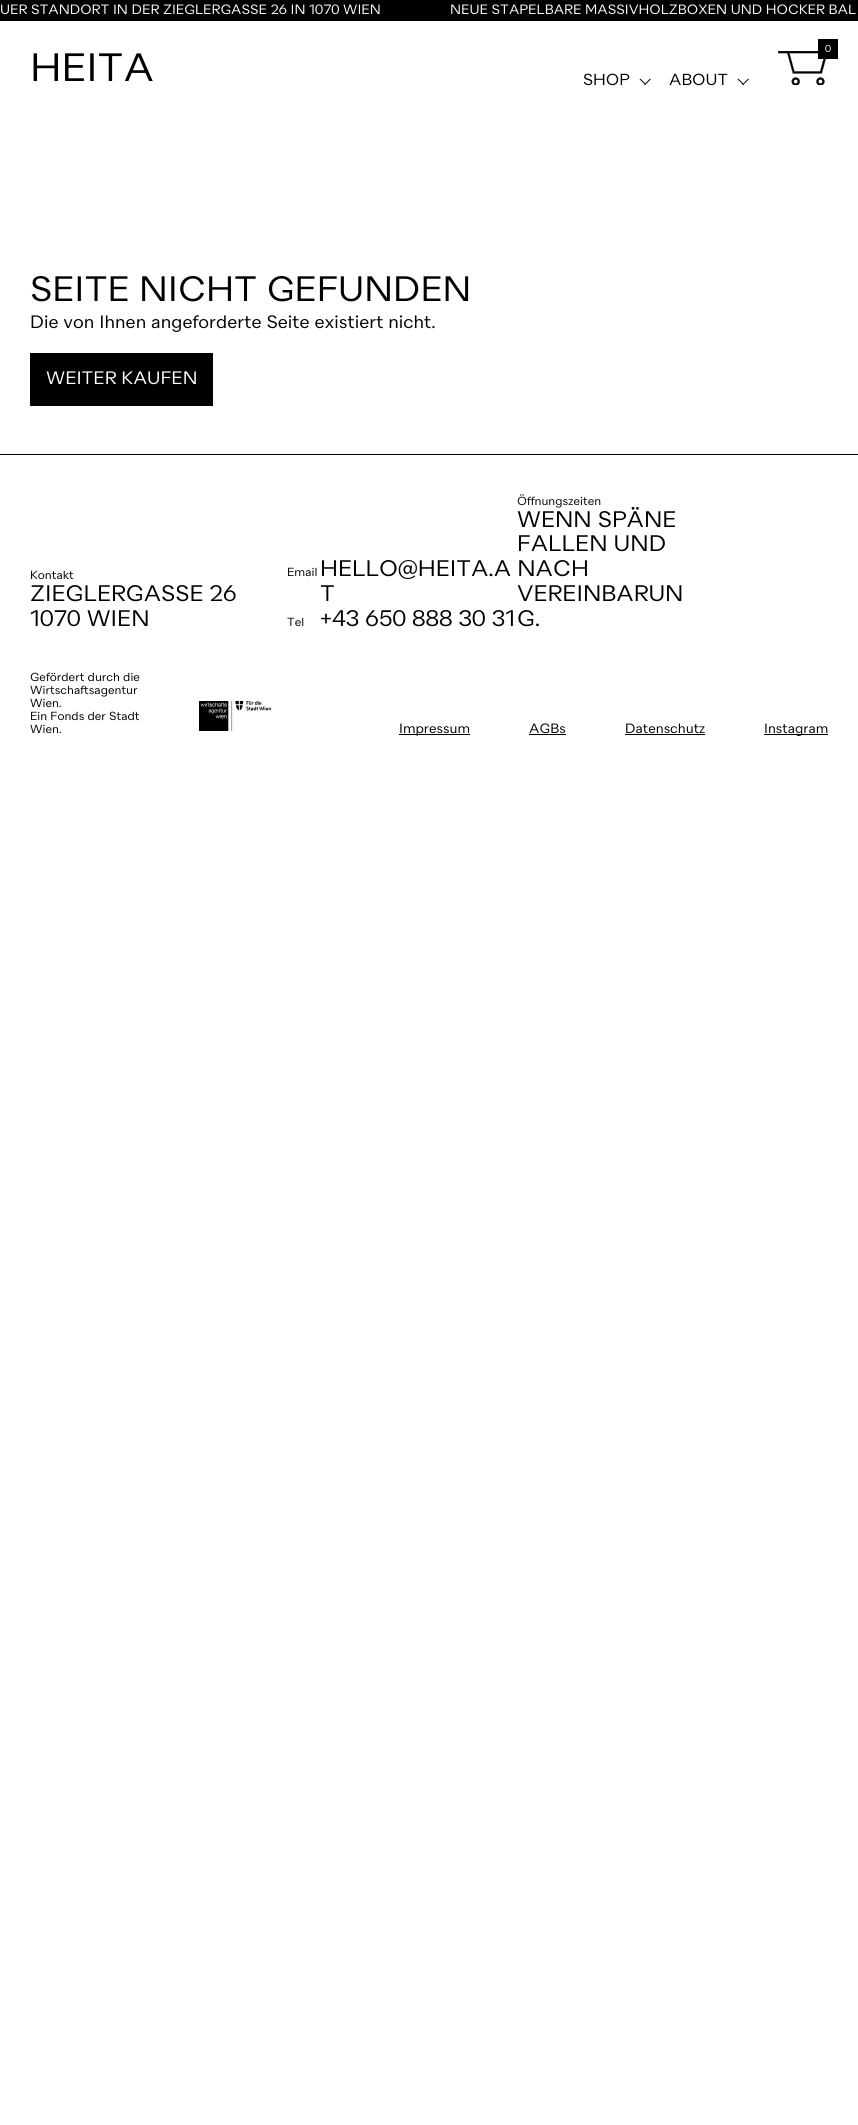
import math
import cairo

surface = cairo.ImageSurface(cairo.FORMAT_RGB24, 858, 2125)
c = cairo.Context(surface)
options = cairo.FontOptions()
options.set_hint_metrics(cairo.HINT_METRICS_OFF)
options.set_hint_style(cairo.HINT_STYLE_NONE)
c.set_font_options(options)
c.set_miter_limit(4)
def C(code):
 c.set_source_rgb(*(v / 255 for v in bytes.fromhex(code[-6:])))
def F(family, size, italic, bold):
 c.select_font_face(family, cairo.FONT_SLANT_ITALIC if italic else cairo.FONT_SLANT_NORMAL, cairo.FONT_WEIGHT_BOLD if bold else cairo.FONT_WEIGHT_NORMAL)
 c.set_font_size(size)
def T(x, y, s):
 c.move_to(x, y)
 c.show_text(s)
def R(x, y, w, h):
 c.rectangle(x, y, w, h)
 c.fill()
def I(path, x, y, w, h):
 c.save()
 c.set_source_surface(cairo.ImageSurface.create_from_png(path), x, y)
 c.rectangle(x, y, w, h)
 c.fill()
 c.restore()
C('ffffff')
c.paint()
C('000000')
R(0,0,858,21)
F('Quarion',13.5,0,0)
C('ffffff')
T(0,14,'UER STANDORT IN DER ZIEGLERGASSE 26 IN 1070 WIEN')
T(450,14,'NEUE STAPELBARE MASSIVHOLZBOXEN UND HOCKER BAL')
F('Quarion',39.5,0,0)
C('000000')
T(30,81,'HEITA')
I('1.png',778,51,48,34)
R(818,39,20,20)
F('Quarion',10,0,0)
C('ffffff')
T(825,52,'0')
F('Quarion',16,0,0)
C('000000')
T(583,85,'SHOP')
I('2.png',639,78,12,7)
T(669,85,'ABOUT')
I('2.png',737,78,12,7)
F('Quarion',35.25,0,0)
T(30,301,'SEITE NICHT GEFUNDEN')
F('Quarion',18,0,0)
T(30,328,'Die von Ihnen angeforderte Seite existiert nicht.')
R(30,353,183,53)
C('ffffff')
T(46,384,'WEITER KAUFEN')
C('000000')
R(0,454,858,1)
F('Quarion',11.75,0,0)
T(30,579,'Kontakt')
F('Quarion',22.5,0,0)
T(30,601,'ZIEGLERGASSE 26')
T(30,626,'1070 WIEN')
F('Quarion',11.75,0,0)
T(287,576,'Email')
F('Quarion',22.5,0,0)
T(320,576,'HELLO@HEITA.A NACH')
T(320,601,'T')
F('Quarion',11.75,0,0)
T(287,626,'Tel')
F('Quarion',22.5,0,0)
T(320,626,'+43 650 888 30 31')
F('Quarion',11.75,0,0)
T(517,505,'Öffnungszeiten')
F('Quarion',22.5,0,0)
T(517,527,'WENN SPÄNE')
T(517,551,'FALLEN UND')
T(517,601,'VEREINBARUN')
T(517,626,'G.')
F('Quarion',11.75,0,0)
T(30,681,'Gefördert durch die')
T(30,694,'Wirtschaftsagentur')
T(30,707,'Wien.')
T(30,720,'Ein Fonds der Stadt')
T(30,733,'Wien.')
I('3.png',199,701,72,30)
R(399,734,71,1)
F('Quarion',13.5,0,0)
T(399,733,'Impressum')
T(529,733,'AGBs')
R(529,734,37,1)
T(625,733,'Datenschutz')
R(625,734,80,1)
R(764,734,64,1)
T(764,733,'Instagram')
surface.write_to_png('o.png')
